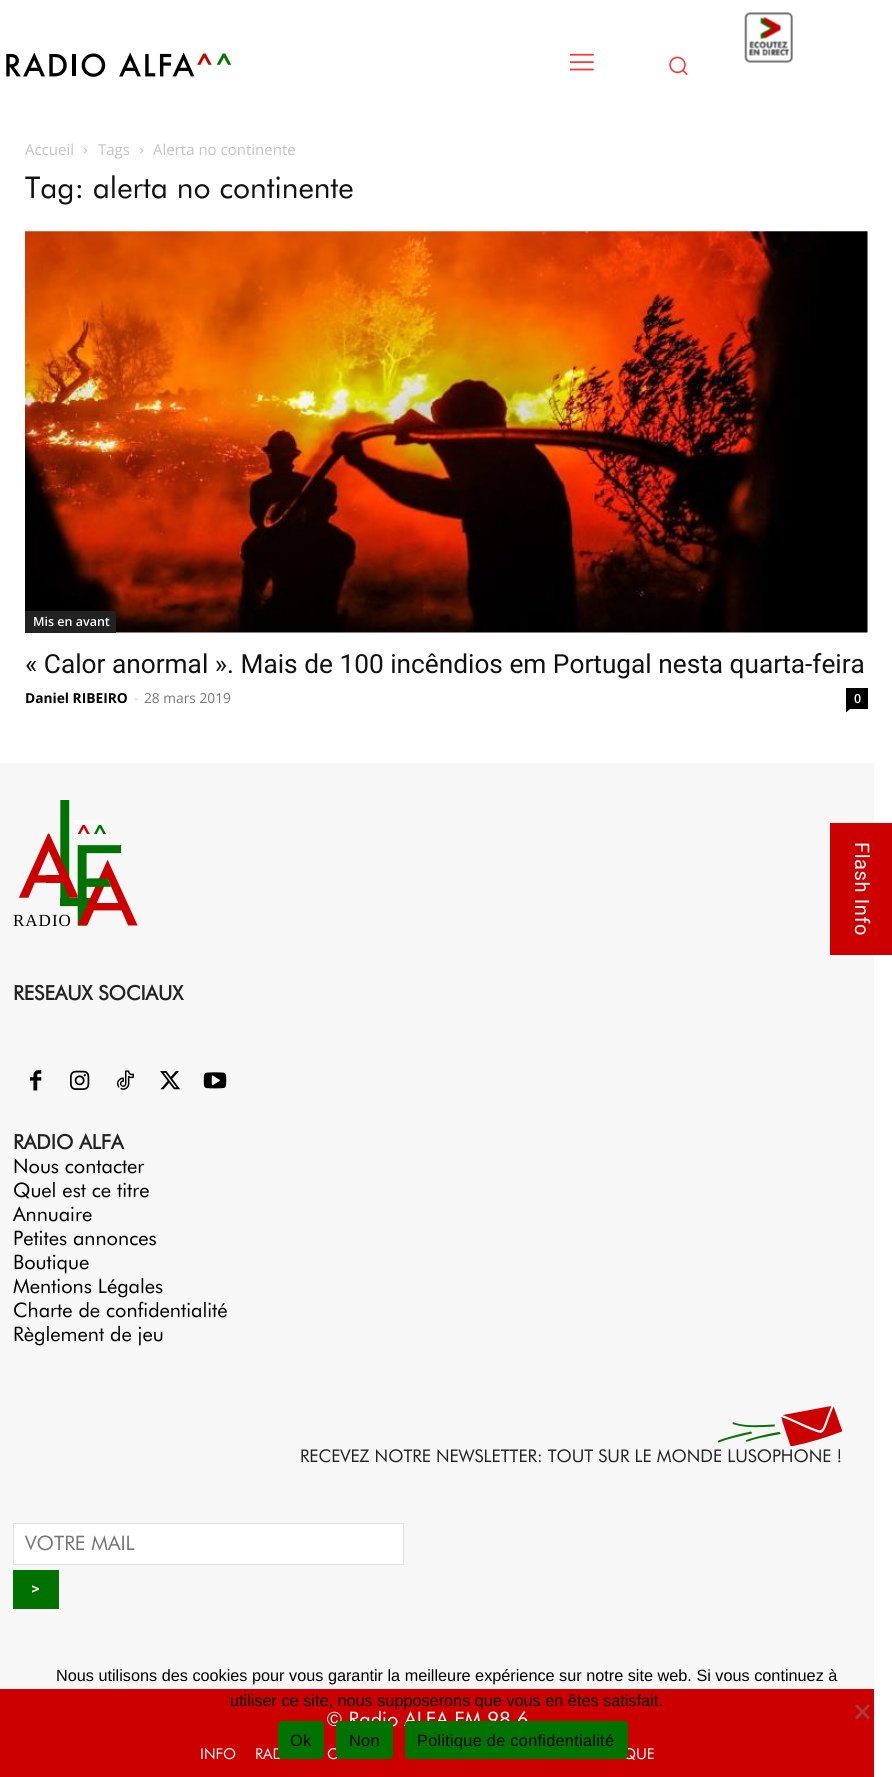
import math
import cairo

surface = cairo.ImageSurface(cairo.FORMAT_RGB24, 892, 1777)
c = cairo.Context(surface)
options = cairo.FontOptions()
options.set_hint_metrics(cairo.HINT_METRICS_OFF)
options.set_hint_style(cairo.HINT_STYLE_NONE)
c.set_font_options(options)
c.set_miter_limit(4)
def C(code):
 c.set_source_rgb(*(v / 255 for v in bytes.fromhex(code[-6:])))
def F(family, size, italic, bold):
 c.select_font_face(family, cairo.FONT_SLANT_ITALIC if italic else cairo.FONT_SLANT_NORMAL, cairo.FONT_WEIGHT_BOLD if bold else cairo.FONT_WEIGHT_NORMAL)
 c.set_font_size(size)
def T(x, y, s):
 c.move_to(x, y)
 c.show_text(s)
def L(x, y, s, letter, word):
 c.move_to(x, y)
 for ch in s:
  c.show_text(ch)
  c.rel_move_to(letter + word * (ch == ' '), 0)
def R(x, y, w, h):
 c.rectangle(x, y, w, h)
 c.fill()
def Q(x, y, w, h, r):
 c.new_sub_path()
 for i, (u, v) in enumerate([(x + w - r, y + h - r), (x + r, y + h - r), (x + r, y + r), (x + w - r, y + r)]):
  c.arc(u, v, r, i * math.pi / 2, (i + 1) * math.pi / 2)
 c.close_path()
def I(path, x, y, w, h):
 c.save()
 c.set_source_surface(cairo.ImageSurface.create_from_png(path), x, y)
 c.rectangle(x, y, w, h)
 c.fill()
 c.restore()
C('ffffff')
c.paint()
I('1.png',6,53,225,24)
I('2.png',570,53,24,18)
I('3.png',669,56,19,20)
I('4.png',744,12,49,51)
F('Open Sans',15,0,0)
C('c3c3c3')
T(25,155,'Accueil')
I('5.png',83,147,4,7)
T(98,155,'Tags')
I('6.png',140,147,4,7)
T(153,155,'Alerta no continente')
F('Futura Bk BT',30,0,0)
C('111111')
T(25,198,'Tag: alerta no continente')
I('7.png',25,231,843,402)
C('222222')
R(25,611,91,22)
F('Open Sans SemiBold',12.5,0,0)
C('ffffff')
T(33,626,'Mis en avant')
F('Roboto',26.25,0,0)
C('111111')
T(25,673,'« Calor anormal ». Mais de 100 incêndios em Portugal nesta quarta-feira')
F('Open Sans',13.75,0,1)
C('000000')
T(25,703,'Daniel RIBEIRO')
F('Open Sans',13.75,0,0)
C('cccccc')
T(134,703,'-')
C('767676')
T(144,703,'28 mars 2019')
C('000000')
R(846,688,22,21)
F('Open Sans SemiBold',12.5,0,0)
C('ffffff')
T(854,703,'0')
C('000000')
c.new_path()
c.move_to(846,709)
c.line_to(850,709)
c.line_to(846,712.5)
c.close_path()
c.fill()
C('f7f7f7')
R(0,763,874,926)
I('8.png',18,800,120,126)
F('Liberation Serif',17,0,0)
C('000000')
L(13,926,'RADIO',1,0)
F('Futura Bk BT',20,0,1)
C('222222')
T(13,1000,'RESEAUX SOCIAUX')
I('9.png',30,1070,12,21)
I('10.png',70,1070,20,20)
I('11.png',117,1070,17,20)
I('12.png',160,1071,20,19)
I('13.png',203,1072,24,17)
T(13,1149,'RADIO ALFA')
F('Futura Bk BT',20,0,0)
C('000000')
T(13,1173,'Nous contacter')
T(13,1197,'Quel est ce titre')
T(13,1221,'Annuaire')
T(13,1245,'Petites annonces')
T(13,1269,'Boutique')
T(13,1293,'Mentions Légales')
T(13,1317,'Charte de confidentialité')
T(13,1341,'Règlement de jeu')
I('14.png',718,1401,124,45)
F('Futura Bk BT',17.5,0,0)
C('222222')
T(300,1462,'RECEVEZ NOTRE NEWSLETTER: TOUT SUR LE MONDE LUSOPHONE !')
C('ffffff')
c.rectangle(13.5,1523.5,390,41)
c.fill_preserve()
C('e1e1e1')
c.set_line_width(1)
c.stroke()
F('Futura Bk BT',20,0,0)
C('767676')
T(25,1550,'VOTRE MAIL')
C('007200')
R(13,1570,46,39)
F('Roboto Medium',16.25,0,0)
C('ffffff')
T(31,1594,'>')
C('cc0000')
R(0,1689,874,88)
F('Futura Bk BT',20,0,0)
C('ffffff')
T(326,1726,'© Radio ALFA FM 98.6')
F('Futura Bk BT',15,0,0)
T(200,1759,'INFO')
T(255,1759,'RAD')
T(327,1759,'O')
T(623,1759,'QUE')
C('cc0000')
R(830,823,62,132)
F('Roboto',20,0,0)
C('ffffff')
c.save()
c.translate(855,842)
c.rotate(90 * math.pi / 180)
L(0,0,'Flash Info',.6,0)
c.restore()
F('Liberation Sans',16.25,0,0)
C('000000')
T(56,1681,'Nous utilisons des cookies pour vous garantir la meilleure expérience sur notre site web. Si vous continuez à')
T(230,1706,'utiliser ce site, nous supposerons que vous en êtes satisfait.')
C('a64040')
c.new_path()
c.move_to(868,1704.5)
c.line_to(870,1706)
c.line_to(857,1719.5)
c.line_to(855,1717.5)
c.close_path()
c.fill()
c.new_path()
c.move_to(855,1706)
c.line_to(857,1704.5)
c.line_to(870,1717.5)
c.line_to(868,1719.5)
c.close_path()
c.fill()
C('017301')
Q(278,1721,46,38,4)
c.fill()
C('000000')
L(290,1746,'Ok',.3,0)
C('017301')
Q(336,1721,57,38,4)
c.fill()
C('000000')
L(349,1746,'Non',.3,0)
C('017301')
Q(405,1721,223,38,4)
c.fill()
C('000000')
L(417,1746,'Politique de confidentialité',.3,0)
surface.write_to_png('o.png')
